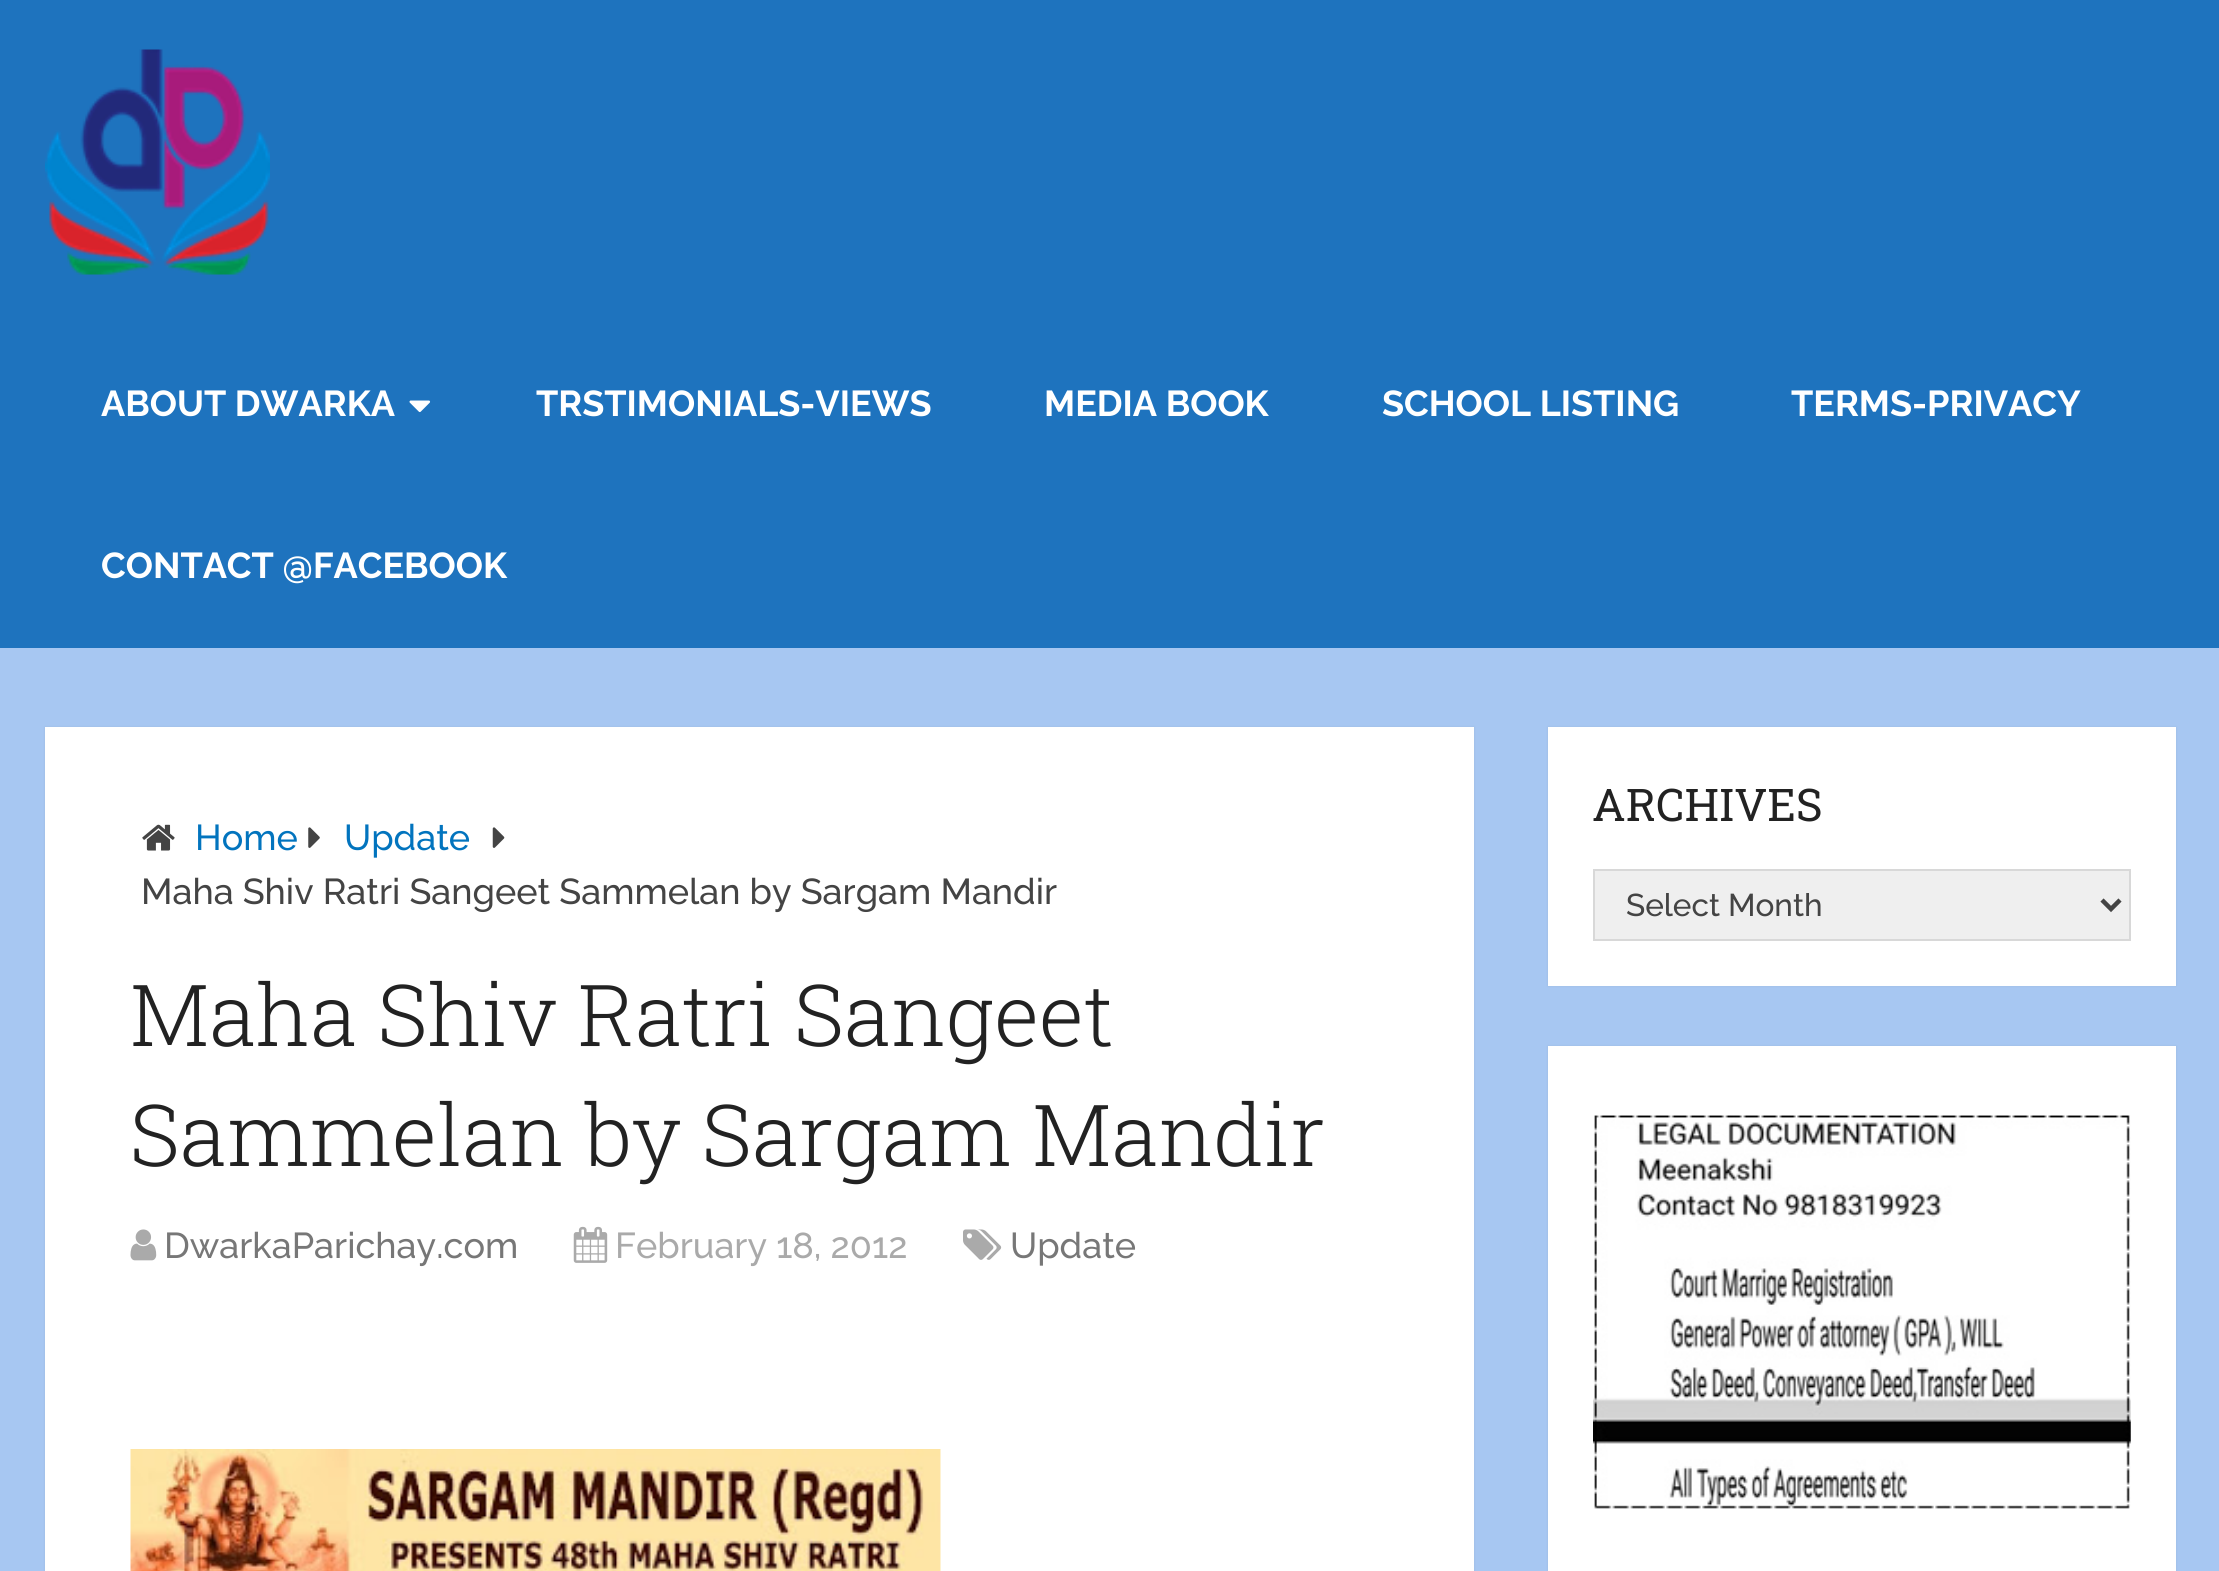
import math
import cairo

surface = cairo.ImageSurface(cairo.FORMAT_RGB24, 2219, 1571)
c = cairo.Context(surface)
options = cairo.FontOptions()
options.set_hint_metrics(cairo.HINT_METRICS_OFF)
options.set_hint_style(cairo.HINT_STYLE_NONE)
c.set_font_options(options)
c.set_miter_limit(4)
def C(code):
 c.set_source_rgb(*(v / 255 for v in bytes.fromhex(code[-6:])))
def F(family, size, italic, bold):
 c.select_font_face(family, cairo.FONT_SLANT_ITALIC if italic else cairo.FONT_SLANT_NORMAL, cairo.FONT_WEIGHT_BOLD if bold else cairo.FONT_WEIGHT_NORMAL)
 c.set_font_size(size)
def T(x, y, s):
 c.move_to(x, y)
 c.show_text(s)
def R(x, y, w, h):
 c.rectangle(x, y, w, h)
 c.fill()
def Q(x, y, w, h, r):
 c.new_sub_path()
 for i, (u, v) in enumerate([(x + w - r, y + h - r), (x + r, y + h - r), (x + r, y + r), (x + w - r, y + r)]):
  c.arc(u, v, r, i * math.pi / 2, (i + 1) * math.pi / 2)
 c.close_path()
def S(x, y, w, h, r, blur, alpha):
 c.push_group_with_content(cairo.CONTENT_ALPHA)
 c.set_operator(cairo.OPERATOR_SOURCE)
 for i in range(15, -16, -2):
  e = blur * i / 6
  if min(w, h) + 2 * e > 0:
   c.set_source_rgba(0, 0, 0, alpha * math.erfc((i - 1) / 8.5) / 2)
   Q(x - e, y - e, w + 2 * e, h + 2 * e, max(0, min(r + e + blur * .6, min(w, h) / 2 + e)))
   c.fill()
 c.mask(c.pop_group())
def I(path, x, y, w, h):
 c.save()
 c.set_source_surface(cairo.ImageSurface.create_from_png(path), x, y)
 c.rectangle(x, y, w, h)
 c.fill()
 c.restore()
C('a7c7f2')
c.paint()
C('1e73be')
R(0,0,2219,648)
I('1.png',45,49,225,226)
F('Raleway',36,0,1)
C('ffffff')
T(101,416,'ABOUT DWARKA')
I('2.png',409,400,22,13)
T(536,416,'TRSTIMONIALS-VIEWS')
T(1044,416,'MEDIA BOOK')
T(1382,416,'SCHOOL LISTING')
T(1791,416,'TERMS-PRIVACY')
T(101,578,'CONTACT @FACEBOOK')
C('323232')
S(45,727,1429,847,0,1,.1)
C('ffffff')
R(45,727,1429,844)
I('3.png',142,824,33,27)
F('Raleway Medium',36,0,0)
C('0274be')
T(195,850,'Home')
I('4.png',308,827,12,21)
T(344,850,'Update')
I('5.png',492,827,13,21)
C('444444')
T(141,904,'Maha Shiv Ratri Sangeet Sammelan by Sargam Mandir')
F('Roboto Slab Light',85.5,0,0)
C('222222')
T(130,1046,'Maha Shiv Ratri Sangeet')
T(130,1166,'Sammelan by Sargam Mandir')
I('6.png',130,1229,27,32)
F('Raleway Medium',36,0,0)
C('777777')
T(164,1258,'DwarkaParichay.com')
I('7.png',573,1226,35,37)
C('aaaaaa')
T(615,1258,'February 18, 2012')
I('8.png',963,1229,39,31)
C('777777')
T(1010,1258,'Update')
I('9.png',130,1449,811,122)
C('323232')
S(1548,727,628,259,0,1,.1)
C('ffffff')
R(1548,727,628,259)
F('Roboto Slab',45,0,0)
C('222222')
T(1592,821,'ARCHIVES')
C('efefef')
c.rectangle(1594,870,536,70)
c.fill_preserve()
C('d8d8d8')
c.stroke()
c.new_path()
c.move_to(2102,900)
c.line_to(2111,909)
c.line_to(2120,900)
C('444444')
c.set_line_width(4.5)
c.stroke()
F('Raleway Medium',31.5,0,0)
T(1626,916,'Select Month')
C('323232')
S(1548,1046,628,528,0,1,.1)
C('ffffff')
R(1548,1046,628,525)
I('10.png',1593,1115,538,394)
surface.write_to_png('o.png')
